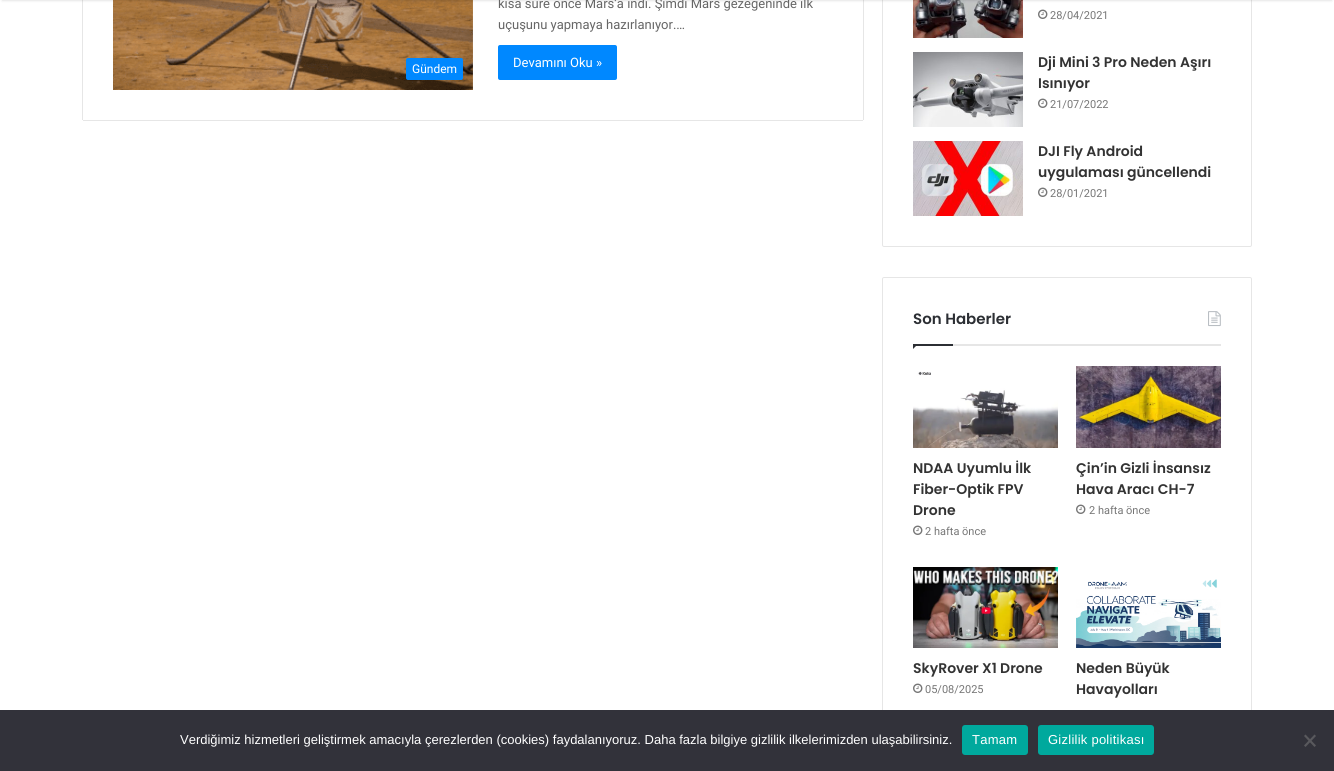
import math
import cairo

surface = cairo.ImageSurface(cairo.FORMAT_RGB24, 1334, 771)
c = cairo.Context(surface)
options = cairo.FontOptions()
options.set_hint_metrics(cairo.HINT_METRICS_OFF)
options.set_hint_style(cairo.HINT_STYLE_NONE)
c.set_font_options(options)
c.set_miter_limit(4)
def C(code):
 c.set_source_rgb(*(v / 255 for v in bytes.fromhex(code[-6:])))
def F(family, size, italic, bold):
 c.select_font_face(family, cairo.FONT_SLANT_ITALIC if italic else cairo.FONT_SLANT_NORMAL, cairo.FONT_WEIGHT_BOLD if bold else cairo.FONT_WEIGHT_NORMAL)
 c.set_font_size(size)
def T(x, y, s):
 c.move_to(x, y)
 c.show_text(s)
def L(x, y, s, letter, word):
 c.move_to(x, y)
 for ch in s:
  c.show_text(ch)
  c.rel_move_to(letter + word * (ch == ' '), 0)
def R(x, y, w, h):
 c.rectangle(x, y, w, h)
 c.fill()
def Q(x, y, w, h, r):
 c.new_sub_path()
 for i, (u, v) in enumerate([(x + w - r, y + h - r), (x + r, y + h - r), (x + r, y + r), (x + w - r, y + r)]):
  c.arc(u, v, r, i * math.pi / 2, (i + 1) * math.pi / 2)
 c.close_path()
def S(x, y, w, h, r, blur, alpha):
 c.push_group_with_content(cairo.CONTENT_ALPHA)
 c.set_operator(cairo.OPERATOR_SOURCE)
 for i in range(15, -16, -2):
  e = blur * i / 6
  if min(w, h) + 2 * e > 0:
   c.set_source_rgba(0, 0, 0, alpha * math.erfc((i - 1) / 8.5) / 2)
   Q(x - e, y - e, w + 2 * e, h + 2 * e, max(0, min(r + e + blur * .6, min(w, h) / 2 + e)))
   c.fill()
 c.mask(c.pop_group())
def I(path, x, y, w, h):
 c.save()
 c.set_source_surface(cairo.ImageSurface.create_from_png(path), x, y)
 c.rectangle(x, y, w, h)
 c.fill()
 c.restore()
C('ffffff')
c.paint()
C('e6e6e6')
R(863,0,1,120)
R(82,0,1,120)
I('1.png',113,0,360,90)
Q(882.5,-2.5,369,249,1.5)
c.set_line_width(1)
c.stroke()
I('2.png',913,0,110,38)
C('000000')
S(2,-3,1330,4,0,1,.1)
C('e6e6e6')
R(83,120,780,1)
F('Roboto',13,0,0)
C('666666')
T(498,8,'kısa süre önce Mars’a indi. Şimdi Mars gezegeninde ilk')
T(498,29,'uçuşunu yapmaya hazırlanıyor.…')
C('0088ff')
Q(498,45,119,35,2)
c.fill()
C('ffffff')
T(513,67,'Devamını Oku »')
C('0088ff')
Q(406,58,57,22,2)
c.fill()
F('Roboto',12,0,0)
C('ffffff')
T(412,73,'Gündem')
I('3.png',1038,9,10,10)
F('Roboto',11,0,0)
C('767676')
T(1050,19,'28/04/2021')
I('4.png',913,52,110,75)
F('Poppins SemiBold',14,0,0)
C('333333')
T(1038,67,'Dji Mini 3 Pro Neden Aşırı')
T(1038,88,'Isınıyor')
I('3.png',1038,98,10,10)
F('Roboto',11,0,0)
C('767676')
T(1050,108,'21/07/2022')
I('5.png',913,141,110,75)
F('Poppins SemiBold',14,0,0)
C('333333')
T(1038,156,'DJI Fly Android')
T(1038,177,'uygulaması güncellendi')
I('3.png',1038,187,10,10)
F('Roboto',11,0,0)
C('767676')
T(1050,197,'28/01/2021')
Q(882.5,277.5,369,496,1.5)
C('e6e6e6')
c.stroke()
R(953,344,268,2)
F('Poppins SemiBold',15,0,0)
C('2c2f34')
T(913,324,'Son Haberler')
I('6.png',1208,311,13,16)
c.new_path()
c.move_to(913,344)
c.line_to(918,344)
c.line_to(913,349)
c.close_path()
c.fill()
R(913,344,40,2)
I('7.png',913,371,145,77)
F('Poppins SemiBold',14,0,0)
C('333333')
T(913,473,'NDAA Uyumlu İlk')
T(913,494,'Fiber-Optik FPV')
T(913,515,'Drone')
I('3.png',913,525,10,10)
F('Roboto',11,0,0)
C('767676')
T(925,535,'2 hafta önce')
I('8.png',1076,366,145,82)
F('Poppins SemiBold',14,0,0)
C('333333')
T(1076,473,'Çin’in Gizli İnsansız')
T(1076,494,'Hava Aracı CH-7')
I('3.png',1076,504,10,10)
F('Roboto',11,0,0)
C('767676')
T(1089,514,'2 hafta önce')
I('9.png',913,567,145,81)
F('Poppins SemiBold',14,0,0)
C('333333')
T(913,673,'SkyRover X1 Drone')
I('3.png',913,683,10,10)
F('Roboto',11,0,0)
C('767676')
T(925,693,'05/08/2025')
I('10.png',1076,579,145,69)
F('Poppins SemiBold',14,0,0)
C('333333')
T(1076,673,'Neden Büyük')
T(1076,694,'Havayolları')
C('32323a')
R(0,710,1334,61)
F('Liberation Sans',13,0,0)
C('ffffff')
T(180,744,'Verdiğimiz hizmetleri geliştirmek amacıyla çerezlerden (cookies) faydalanıyoruz. Daha fazla bilgiye gizlilik ilkelerimizden ulaşabilirsiniz.')
C('00a99d')
Q(962,725,66,30,3)
c.fill()
C('ffffff')
L(972,744,'Tamam',.25,0)
C('00a99d')
Q(1038,725,116,30,3)
c.fill()
C('ffffff')
L(1048,744,'Gizlilik politikası',.25,0)
C('59595d')
c.new_path()
c.move_to(1314.5,734.5)
c.line_to(1316,736)
c.line_to(1305.5,747)
c.line_to(1304,745.5)
c.close_path()
c.fill()
c.new_path()
c.move_to(1304,736)
c.line_to(1305.5,734.5)
c.line_to(1316,745.5)
c.line_to(1314.5,747)
c.close_path()
c.fill()
surface.write_to_png('o.png')
